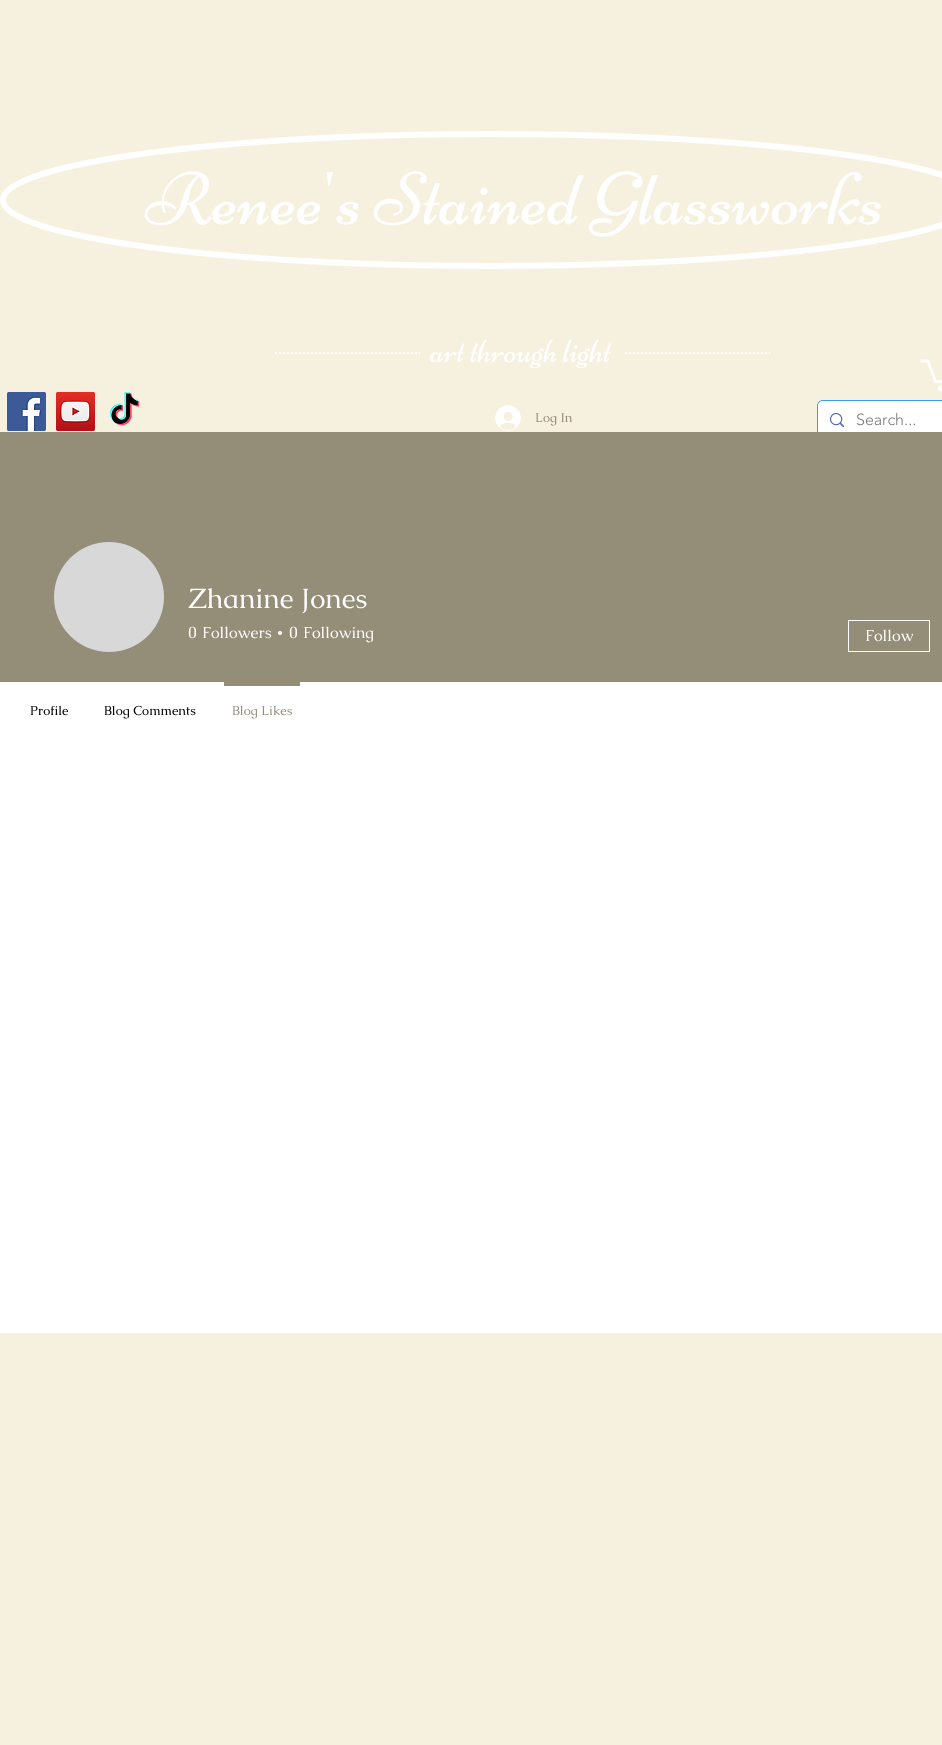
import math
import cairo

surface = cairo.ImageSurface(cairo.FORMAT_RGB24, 942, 1745)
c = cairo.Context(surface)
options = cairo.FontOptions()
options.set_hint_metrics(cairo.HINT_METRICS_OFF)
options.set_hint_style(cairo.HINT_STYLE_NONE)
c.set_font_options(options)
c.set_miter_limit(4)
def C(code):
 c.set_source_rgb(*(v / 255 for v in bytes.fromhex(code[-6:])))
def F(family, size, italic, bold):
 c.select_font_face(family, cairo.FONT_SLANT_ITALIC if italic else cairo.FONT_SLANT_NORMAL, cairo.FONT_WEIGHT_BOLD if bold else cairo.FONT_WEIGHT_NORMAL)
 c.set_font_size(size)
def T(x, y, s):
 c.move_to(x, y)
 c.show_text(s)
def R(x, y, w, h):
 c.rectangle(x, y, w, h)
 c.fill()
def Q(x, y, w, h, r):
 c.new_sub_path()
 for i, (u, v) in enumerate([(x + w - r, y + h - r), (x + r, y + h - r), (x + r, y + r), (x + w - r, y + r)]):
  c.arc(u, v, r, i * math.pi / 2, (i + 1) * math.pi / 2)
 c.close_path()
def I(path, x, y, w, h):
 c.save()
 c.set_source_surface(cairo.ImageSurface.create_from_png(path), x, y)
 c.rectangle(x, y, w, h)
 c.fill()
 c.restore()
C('f6f0df')
c.paint()
c.new_path()
c.move_to(490.5,134)
c.curve_to(759.5,134,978,163.5,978,200)
c.curve_to(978,236.5,759.5,266,490.5,266)
c.curve_to(221.5,266,3,236.5,3,200)
c.curve_to(3,163.5,221.5,134,490.5,134)
c.close_path()
C('ffffff')
c.set_line_width(6)
c.stroke()
I('1.png',145,171,736,66)
c.new_path()
c.move_to(275,353)
c.line_to(420,353)
c.set_line_width(2)
c.set_dash([2,2])
c.stroke()
I('2.png',430,339,181,29)
c.new_path()
c.move_to(625,353)
c.line_to(770,353)
c.stroke()
I('3.png',921,359,21,33)
I('4.png',7,392,39,39)
I('5.png',56,392,39,39)
I('6.png',109,392,31,34)
I('7.png',495,405,26,26)
F('Caudex',13,0,0)
C('948d78')
T(535,422,'Log In')
Q(817.5,400.5,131,39,5.5)
C('3d9be9')
c.set_line_width(1)
c.set_dash([])
c.stroke()
C('ffffff')
Q(818,401,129,38,5)
c.fill()
I('8.png',830,413,14,14)
F('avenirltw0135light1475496 Light',16,0,0)
C('787878')
T(856,425,'Search...')
C('948d78')
R(0,432,942,250)
C('d8d8d8')
c.new_path()
c.arc(109,597,55,0,2 * math.pi)
c.fill()
F('Caudex',28,0,0)
C('ffffff')
T(188,608,'Zhanine Jones')
F('Caudex',16,0,0)
T(188,638,'0')
T(202,638,'Followers')
c.new_path()
c.arc(280,633,2,0,2 * math.pi)
c.fill()
T(289,638,'0')
T(303,638,'Following')
c.rectangle(848.5,620.5,81,31)
c.stroke()
T(865,641,'Follow')
R(0,682,942,651)
F('Caudex',13,0,0)
C('000000')
T(30,715,'Profile')
T(104,715,'Blog Comments')
C('948d78')
R(224,682,76,4)
T(232,715,'Blog Likes')
surface.write_to_png('o.png')
